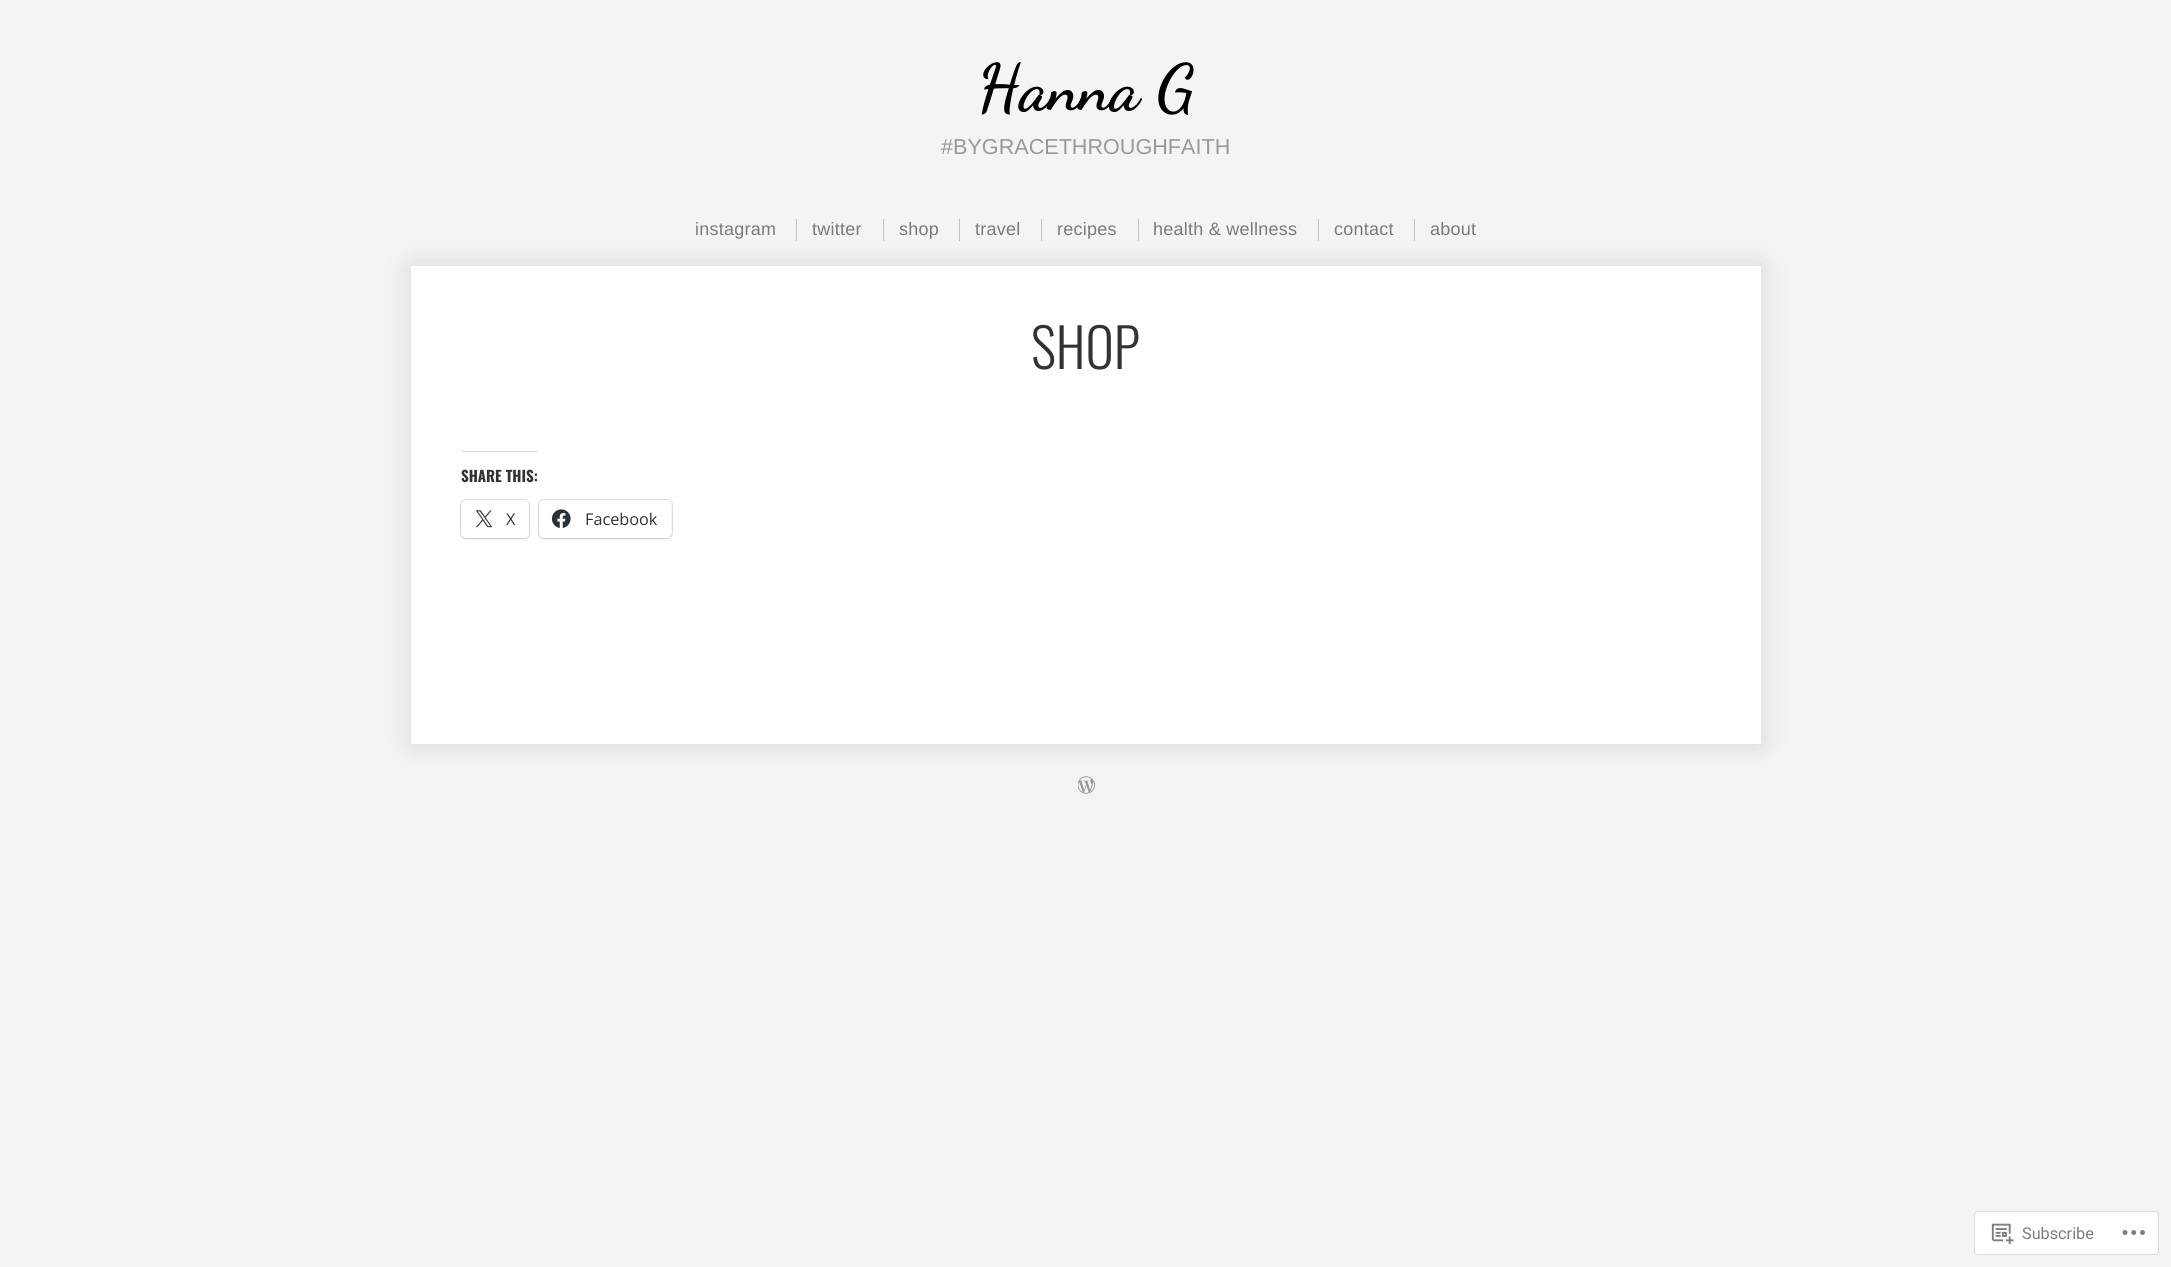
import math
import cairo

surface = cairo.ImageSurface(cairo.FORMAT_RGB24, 2171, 1267)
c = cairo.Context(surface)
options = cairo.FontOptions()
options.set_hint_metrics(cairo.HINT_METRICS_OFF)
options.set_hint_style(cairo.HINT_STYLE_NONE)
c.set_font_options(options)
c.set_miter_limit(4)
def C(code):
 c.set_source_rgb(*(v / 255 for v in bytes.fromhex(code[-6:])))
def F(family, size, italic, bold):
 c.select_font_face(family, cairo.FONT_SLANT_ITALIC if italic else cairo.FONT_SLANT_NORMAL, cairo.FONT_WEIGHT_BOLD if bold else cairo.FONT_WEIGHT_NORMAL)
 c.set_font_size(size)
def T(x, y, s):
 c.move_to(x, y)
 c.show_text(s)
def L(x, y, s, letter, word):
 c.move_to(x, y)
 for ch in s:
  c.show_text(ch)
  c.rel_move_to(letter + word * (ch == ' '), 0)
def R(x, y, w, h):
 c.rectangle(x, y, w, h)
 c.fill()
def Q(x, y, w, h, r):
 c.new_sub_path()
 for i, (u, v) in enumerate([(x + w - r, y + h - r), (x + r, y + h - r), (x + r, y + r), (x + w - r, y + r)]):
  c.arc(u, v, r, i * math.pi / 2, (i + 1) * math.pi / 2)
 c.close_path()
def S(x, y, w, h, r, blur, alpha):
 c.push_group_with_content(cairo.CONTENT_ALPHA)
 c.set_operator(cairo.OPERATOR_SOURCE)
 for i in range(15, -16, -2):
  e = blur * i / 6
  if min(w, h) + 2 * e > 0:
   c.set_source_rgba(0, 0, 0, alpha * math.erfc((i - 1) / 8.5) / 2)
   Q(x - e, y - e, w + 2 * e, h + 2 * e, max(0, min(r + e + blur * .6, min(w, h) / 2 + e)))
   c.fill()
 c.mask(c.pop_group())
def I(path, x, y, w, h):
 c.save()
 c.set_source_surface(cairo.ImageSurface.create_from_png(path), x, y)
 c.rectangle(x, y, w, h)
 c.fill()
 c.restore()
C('f4f4f4')
c.paint()
F('Dancing Script',65,0,1)
C('000000')
T(977,109,'Hanna G')
F('Liberation Sans',21.6,0,0)
C('999999')
T(941,154,'#BYGRACETHROUGHFAITH')
C('000000')
S(411,266,1350,478,0,15,.12)
F('Liberation Sans',18,0,0)
C('7a7a7a')
L(695,235,'instagram',.25,0)
C('c3c3c3')
R(796,219,1,22)
C('7a7a7a')
L(812,235,'twitter',.25,0)
C('c3c3c3')
R(883,219,1,22)
C('7a7a7a')
L(899,235,'shop',.25,0)
C('c3c3c3')
R(959,219,1,22)
C('7a7a7a')
L(975,235,'travel',.25,0)
C('c3c3c3')
R(1041,219,1,22)
C('7a7a7a')
L(1057,235,'recipes',.25,0)
C('c3c3c3')
R(1138,219,1,22)
C('7a7a7a')
L(1153,235,'health & wellness',.25,0)
C('c3c3c3')
R(1318,219,1,22)
C('7a7a7a')
L(1334,235,'contact',.25,0)
C('c3c3c3')
R(1414,219,1,22)
C('7a7a7a')
L(1430,235,'about',.25,0)
C('ffffff')
R(411,266,1350,478)
F('Oswald Light',54,0,0)
C('333333')
T(1031,369,'SHOP')
C('dcdcde')
R(461,451,77,1)
F('Oswald',15,0,1)
C('333333')
T(461,482,'SHARE THIS:')
Q(460.5,499.5,69,39,5.5)
C('e0e0e0')
c.set_line_width(1)
c.stroke()
C('000000')
S(461,501,68,38,5,1,.12)
C('ffffff')
Q(461,500,68,38,5)
c.fill()
I('1.png',475,510,18,18)
F('Open Sans',16.25,0,0)
C('2c3338')
T(506,525,'X')
Q(538.5,499.5,134,39,5.5)
C('e0e0e0')
c.stroke()
C('000000')
S(539,501,132,38,5,1,.12)
C('ffffff')
Q(539,500,132,38,5)
c.fill()
I('2.png',551,509,20,19)
C('2c3338')
T(585,525,'Facebook')
I('3.png',1078,776,17,18)
C('ffffff')
Q(1974.5,1211.5,184,43,3.5)
c.fill_preserve()
C('dcdcde')
c.stroke()
I('4.png',1991,1223,23,22)
F('Roboto',16.25,0,0)
C('7a7e84')
T(2022,1239,'Subscribe')
I('5.png',2122,1230,23,5)
surface.write_to_png('o.png')
